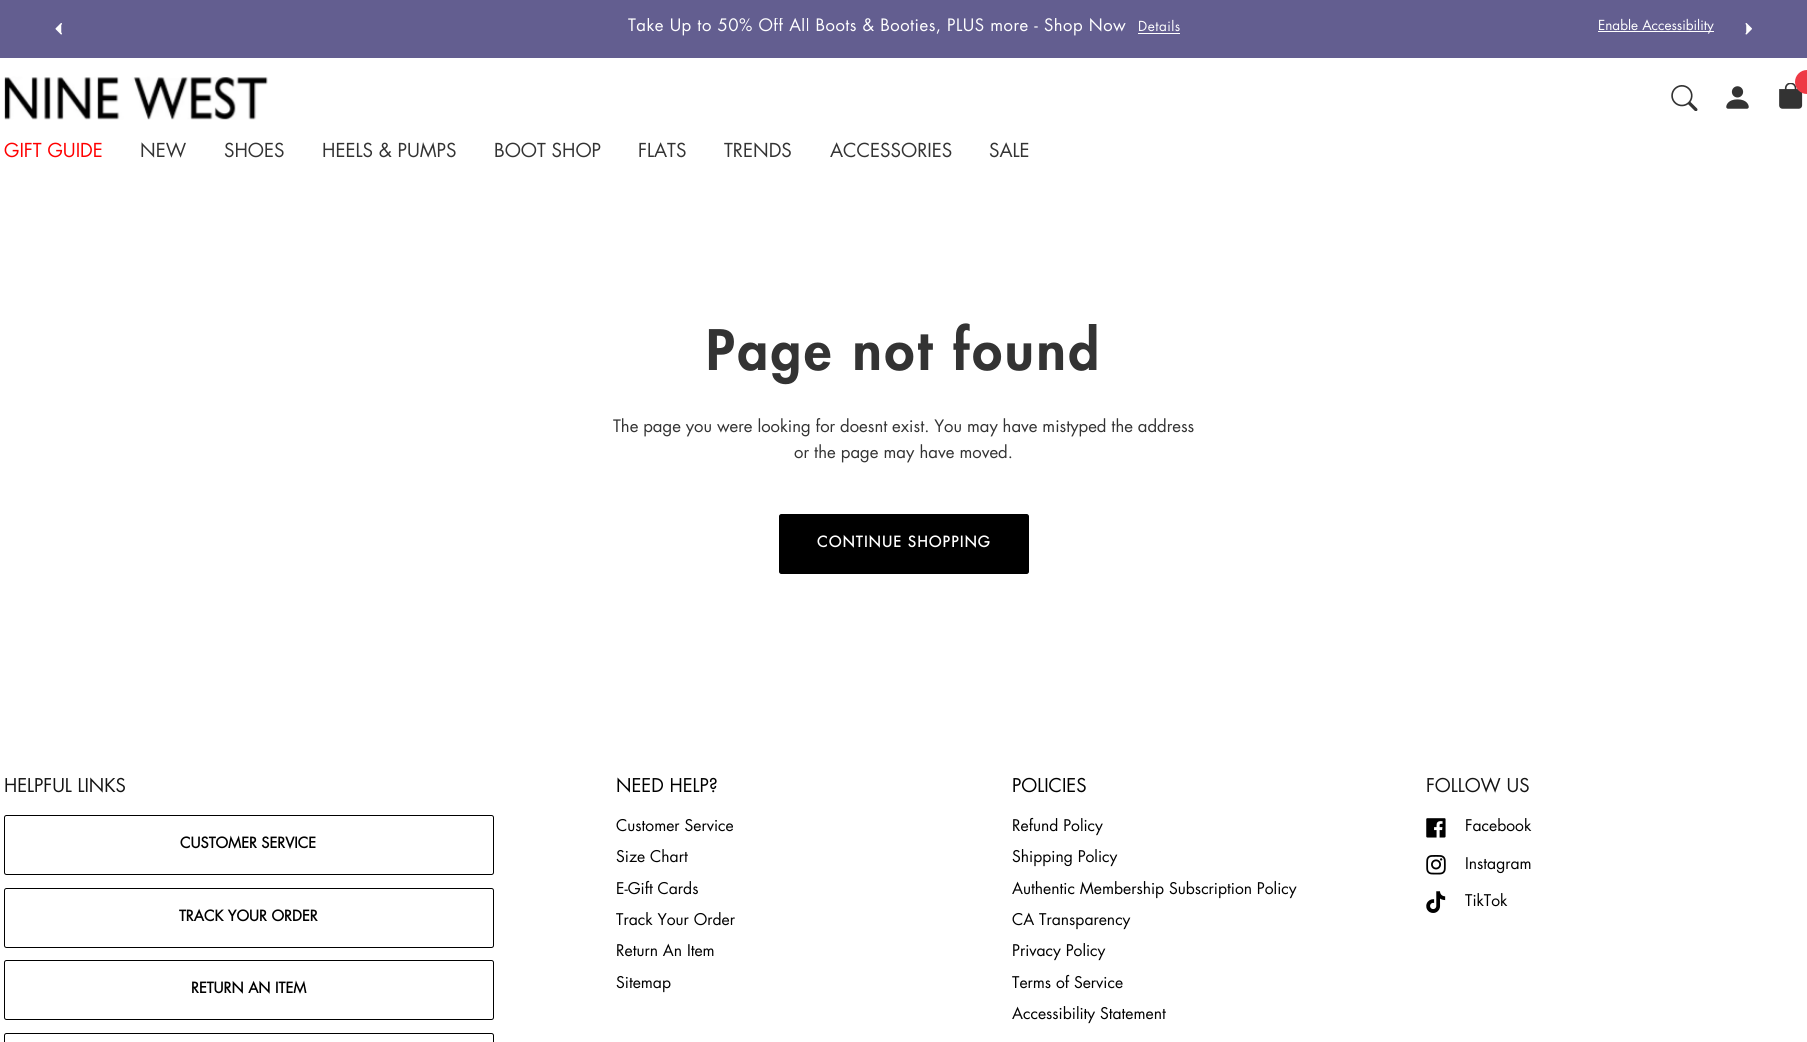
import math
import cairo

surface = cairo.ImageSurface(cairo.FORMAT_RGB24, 1807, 1042)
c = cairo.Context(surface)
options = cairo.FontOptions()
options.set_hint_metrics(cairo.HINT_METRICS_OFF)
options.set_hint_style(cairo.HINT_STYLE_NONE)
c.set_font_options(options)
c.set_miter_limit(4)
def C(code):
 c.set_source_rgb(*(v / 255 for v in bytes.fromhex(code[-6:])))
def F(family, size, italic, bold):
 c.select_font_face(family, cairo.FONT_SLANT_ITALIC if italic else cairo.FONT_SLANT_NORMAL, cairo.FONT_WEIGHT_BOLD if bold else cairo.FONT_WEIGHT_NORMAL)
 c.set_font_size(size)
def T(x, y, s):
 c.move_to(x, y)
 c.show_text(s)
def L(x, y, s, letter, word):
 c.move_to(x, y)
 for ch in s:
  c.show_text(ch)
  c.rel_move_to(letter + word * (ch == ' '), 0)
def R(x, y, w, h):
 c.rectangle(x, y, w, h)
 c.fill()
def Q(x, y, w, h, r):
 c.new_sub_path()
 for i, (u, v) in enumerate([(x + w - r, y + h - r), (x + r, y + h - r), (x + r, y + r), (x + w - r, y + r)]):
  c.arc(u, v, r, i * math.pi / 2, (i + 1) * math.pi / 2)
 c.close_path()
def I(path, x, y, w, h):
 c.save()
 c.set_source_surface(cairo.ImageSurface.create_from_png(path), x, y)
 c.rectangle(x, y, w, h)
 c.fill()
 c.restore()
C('ffffff')
c.paint()
C('635e90')
R(0,0,1807,58)
I('1.png',55,23,7,12)
c.save()
c.rectangle(63,18,1682,22)
c.clip()
F('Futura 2',16.7,0,0)
C('ffffff')
L(628,31,'Take Up to 50% Off All Boots & Booties, PLUS more - Shop Now',.5,0)
c.restore()
F('Futura 2',13.5,0,0)
C('ffffff')
L(1138,31,'Details',.5,0)
R(1138,33,42,1)
I('2.png',1745,23,7,12)
I('3.png',4,76,264,44)
I('4.png',1671,85,27,26)
I('5.png',1726,86,23,23)
I('6.png',1779,83,24,26)
C('ee3a45')
c.arc(1807,82,12,0,2 * math.pi)
c.fill()
F('Futura 2',18.75,0,0)
C('ff0000')
T(4,157,'GIFT GUIDE')
C('333333')
T(140,157,'NEW')
T(224,157,'SHOES')
T(322,157,'HEELS & PUMPS')
T(494,157,'BOOT SHOP')
T(638,157,'FLATS')
T(724,157,'TRENDS')
T(830,157,'ACCESSORIES')
T(989,157,'SALE')
F('Futura',54.25,0,0)
L(706,370,'Page not found',2.75,0)
F('Futura 2',16.7,0,0)
L(613,432,'The page you were looking for doesnt exist. You may have mistyped the address',0,-.25)
T(794,458,'or the page may have moved.')
C('000000')
Q(779.5,514.5,249,59,2)
c.fill_preserve()
c.set_line_width(1)
c.stroke()
F('Futura',14.6,0,1)
C('ffffff')
L(817,547,'CONTINUE SHOPPING',1.2,0)
F('Futura 2',18.5,0,0)
C('151515')
T(4,792,'HELPFUL LINKS')
Q(4.5,815.5,489,59,2)
C('000000')
c.stroke()
F('Futura',14.6,0,1)
T(180,848,'CUSTOMER SERVICE')
Q(4.5,888.5,489,59,2)
c.stroke()
T(179,921,'TRACK YOUR ORDER')
Q(4.5,960.5,489,59,2)
c.stroke()
T(191,993,'RETURN AN ITEM')
Q(4.5,1033.5,489,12,2)
c.stroke()
F('Futura 2',18.5,0,0)
T(616,792,'NEED HELP?')
F('Futura 2',15.7,0,0)
T(616,831,'Customer Service')
T(616,862,'Size Chart')
T(616,894,'E-Gift Cards')
T(616,925,'Track Your Order')
T(616,956,'Return An Item')
T(616,988,'Sitemap')
F('Futura 2',18.5,0,0)
T(1012,792,'POLICIES')
F('Futura 2',15.7,0,0)
T(1012,831,'Refund Policy')
T(1012,862,'Shipping Policy')
T(1012,894,'Authentic Membership Subscription Policy')
T(1012,925,'CA Transparency')
T(1012,956,'Privacy Policy')
T(1012,988,'Terms of Service')
T(1012,1019,'Accessibility Statement')
F('Futura 2',18.5,0,0)
C('151515')
T(1426,792,'FOLLOW US')
I('7.png',1426,818,20,20)
F('Futura 2',15.7,0,0)
C('000000')
T(1465,831,'Facebook')
I('8.png',1426,855,20,20)
T(1465,869,'Instagram')
I('9.png',1426,891,20,22)
T(1465,906,'TikTok')
C('ffffff')
R(1598,31,116,1)
F('Futura 2',13.5,0,0)
T(1598,30,'Enable Accessibility')
surface.write_to_png('o.png')
